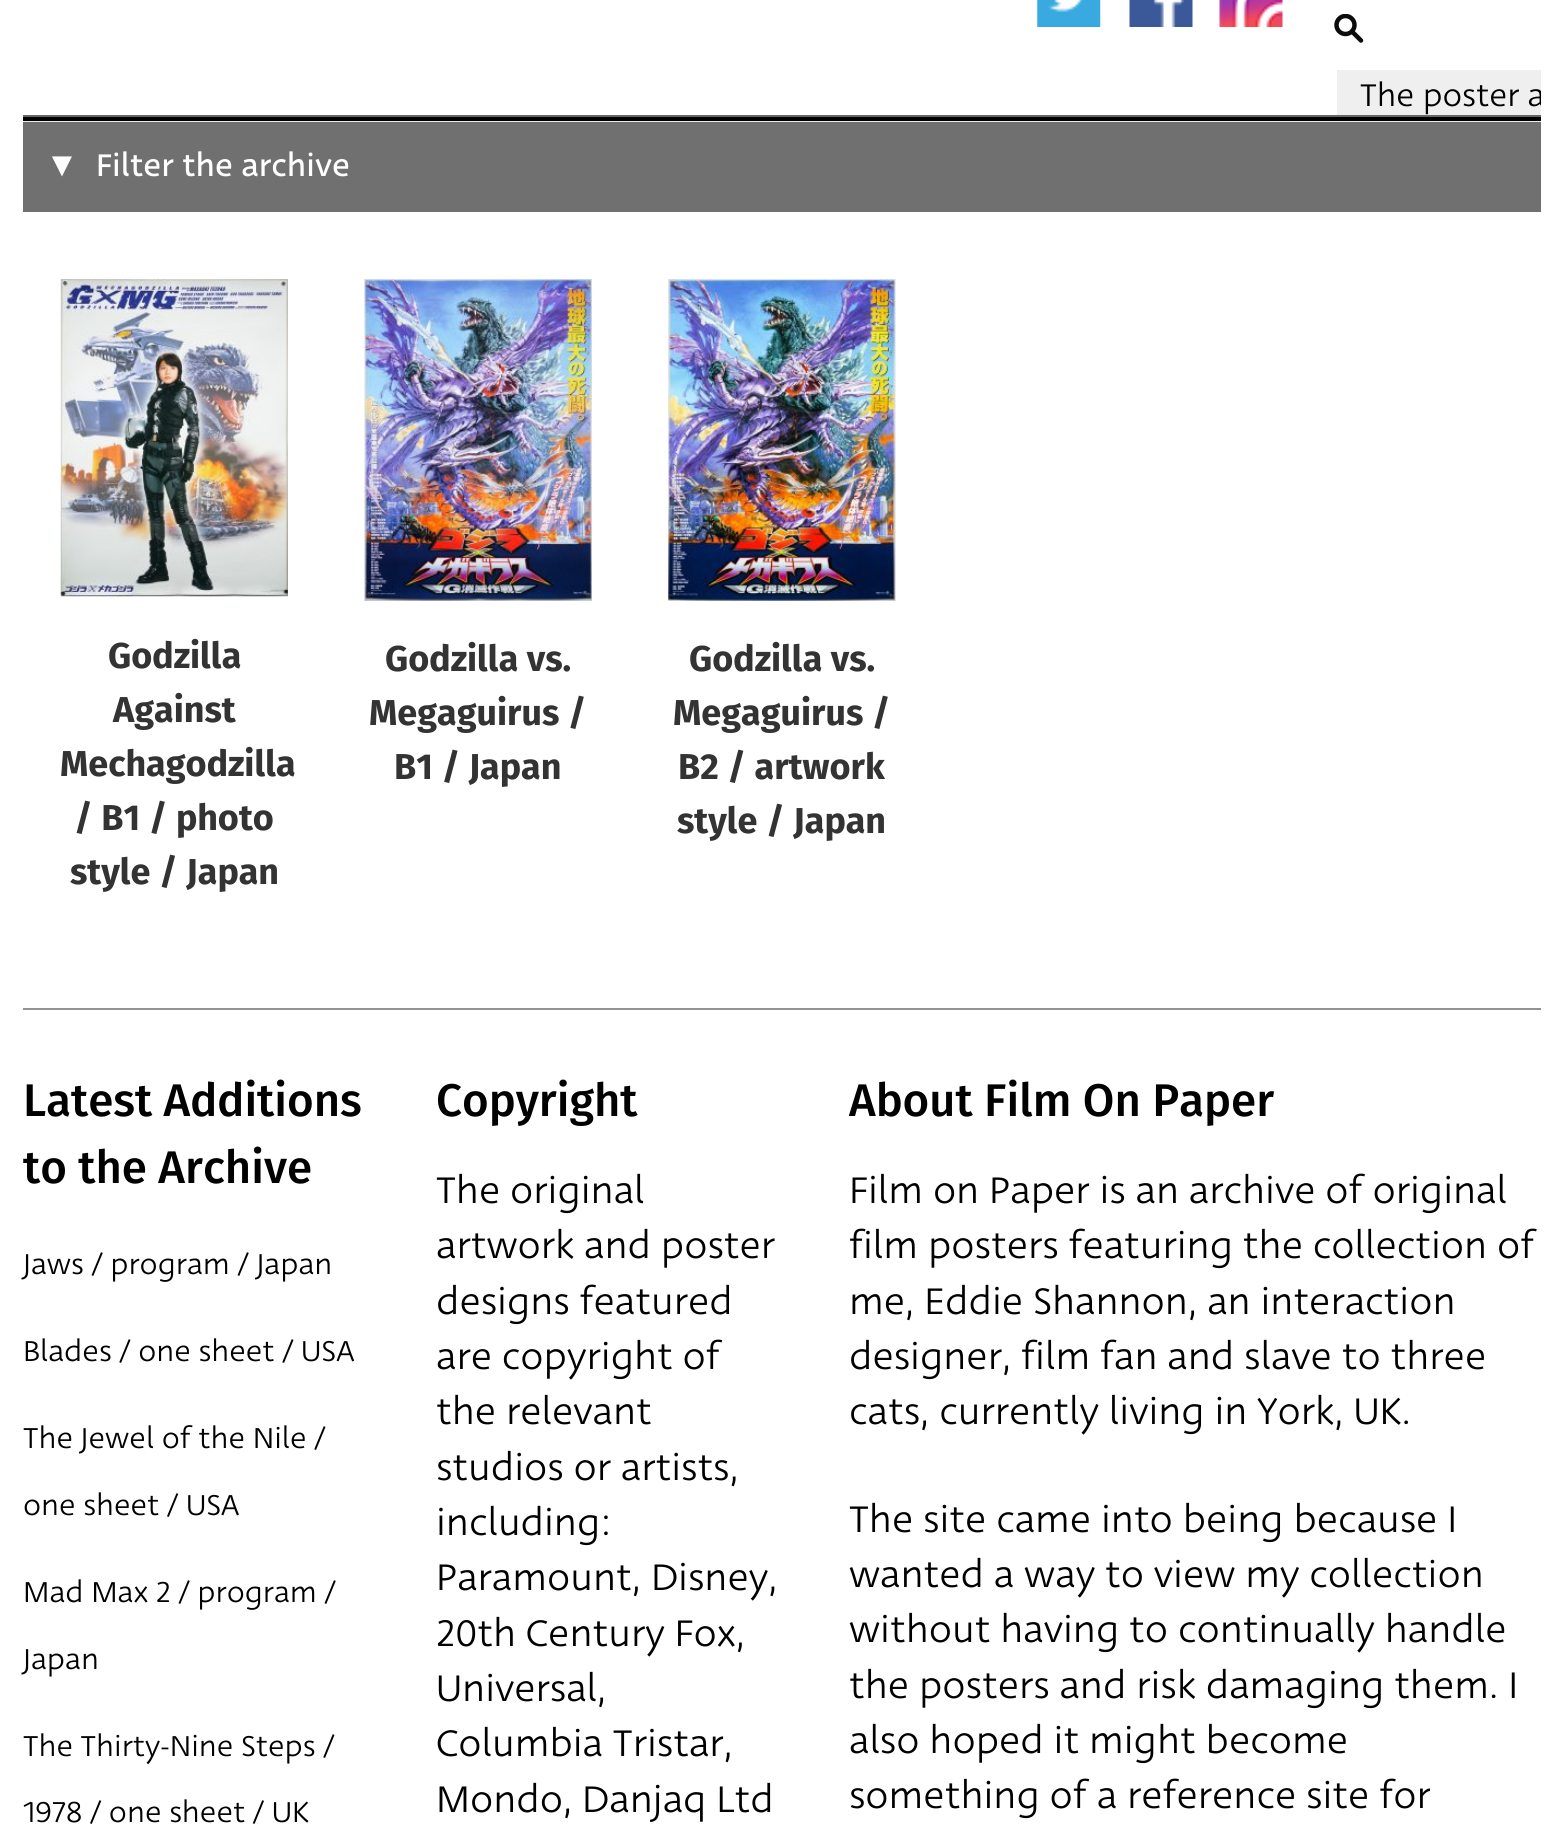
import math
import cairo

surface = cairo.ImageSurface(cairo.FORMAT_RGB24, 1563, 1833)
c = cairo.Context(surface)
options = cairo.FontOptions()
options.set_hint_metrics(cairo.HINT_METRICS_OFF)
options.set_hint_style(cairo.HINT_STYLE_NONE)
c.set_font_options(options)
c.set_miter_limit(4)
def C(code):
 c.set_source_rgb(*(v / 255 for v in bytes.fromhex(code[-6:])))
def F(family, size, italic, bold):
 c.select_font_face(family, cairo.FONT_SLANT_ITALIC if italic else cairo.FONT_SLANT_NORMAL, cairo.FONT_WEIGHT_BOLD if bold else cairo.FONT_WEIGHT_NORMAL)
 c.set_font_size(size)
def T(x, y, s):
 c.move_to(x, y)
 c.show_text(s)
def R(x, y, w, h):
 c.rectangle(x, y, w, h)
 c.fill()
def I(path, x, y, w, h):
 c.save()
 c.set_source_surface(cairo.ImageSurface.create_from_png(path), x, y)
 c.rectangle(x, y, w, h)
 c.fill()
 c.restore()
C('ffffff')
c.paint()
C('666666')
R(23,115,1518,2)
I('1.png',1037,0,64,27)
I('2.png',1129,0,64,27)
I('3.png',1219,0,64,27)
c.save()
c.rectangle(1334,14,30,29)
c.clip()
c.arc(1345.5,25,9,0,2 * math.pi)
C('0b0c0c')
c.set_line_width(4.5)
c.stroke()
c.restore()
c.new_path()
c.move_to(1352,31.5)
c.line_to(1361,40.5)
C('0b0c0c')
c.set_line_width(4.5)
c.set_line_cap(cairo.LINE_CAP_ROUND)
c.stroke()
C('efefef')
R(1337,70,204,45)
c.save()
c.rectangle(1359,70,182,47)
c.clip()
F('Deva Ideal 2',34.25,0,0)
C('000000')
T(1360,106,'The poster a')
c.restore()
C('eeeeee')
R(23,121,1518,1)
C('000000')
R(23,117,1518,4)
C('707070')
R(23,122,1518,90)
F('Liberation Sans',34.25,0,0)
C('ffffff')
T(45,176,'▼')
F('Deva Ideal',34.25,0,0)
T(96,176,'Filter the archive')
I('4.png',60,279,228,318)
F('Fira Sans',36,0,1)
C('333333')
T(108,668,'Godzilla')
T(113,722,'Against')
T(60,776,'Mechagodzilla')
T(74,830,'/ B1 / photo')
T(70,884,'style / Japan')
I('5.png',364,279,228,322)
T(385,671,'Godzilla vs.')
T(369,725,'Megaguirus /')
T(394,779,'B1 / Japan')
I('6.png',668,279,228,322)
T(689,671,'Godzilla vs.')
T(673,725,'Megaguirus /')
T(678,779,'B2 / artwork')
T(677,833,'style / Japan')
C('929292')
R(23,1008,1518,2)
F('Fira Sans Medium',45.75,0,0)
C('000000')
T(23,1116,'Latest Additions')
T(23,1183,'to the Archive')
F('Deva Ideal 2',31.5,0,0)
T(23,1274,'Jaws / program / Japan')
T(23,1361,'Blades / one sheet / USA')
T(23,1448,'The Jewel of the Nile /')
T(23,1515,'one sheet / USA')
T(23,1602,'Mad Max 2 / program /')
T(23,1669,'Japan')
T(23,1756,'The Thirty-Nine Steps /')
T(23,1822,'1978 / one sheet / UK')
F('Fira Sans Medium',45.75,0,0)
T(436,1116,'Copyright')
F('Deva Ideal 2',40.5,0,0)
T(436,1203,'The original')
T(436,1258,'artwork and poster')
T(436,1314,'designs featured')
T(436,1369,'are copyright of')
T(436,1424,'the relevant')
T(436,1480,'studios or artists,')
T(436,1535,'including:')
T(436,1590,'Paramount, Disney,')
T(436,1646,'20th Century Fox,')
T(436,1701,'Universal,')
T(436,1756,'Columbia Tristar,')
T(436,1812,'Mondo, Danjaq Ltd')
F('Fira Sans Medium',45.75,0,0)
T(849,1116,'About Film On Paper')
F('Deva Ideal 2',40.5,0,0)
T(849,1203,'Film on Paper is an archive of original')
T(849,1258,'film posters featuring the collection of')
T(849,1314,'me, Eddie Shannon, an interaction')
T(849,1369,'designer, film fan and slave to three')
T(849,1424,'cats, currently living in York, UK.')
T(849,1532,'The site came into being because I')
T(849,1587,'wanted a way to view my collection')
T(849,1642,'without having to continually handle')
T(849,1698,'the posters and risk damaging them. I')
T(849,1753,'also hoped it might become')
T(849,1808,'something of a reference site for')
surface.write_to_png('o.png')
